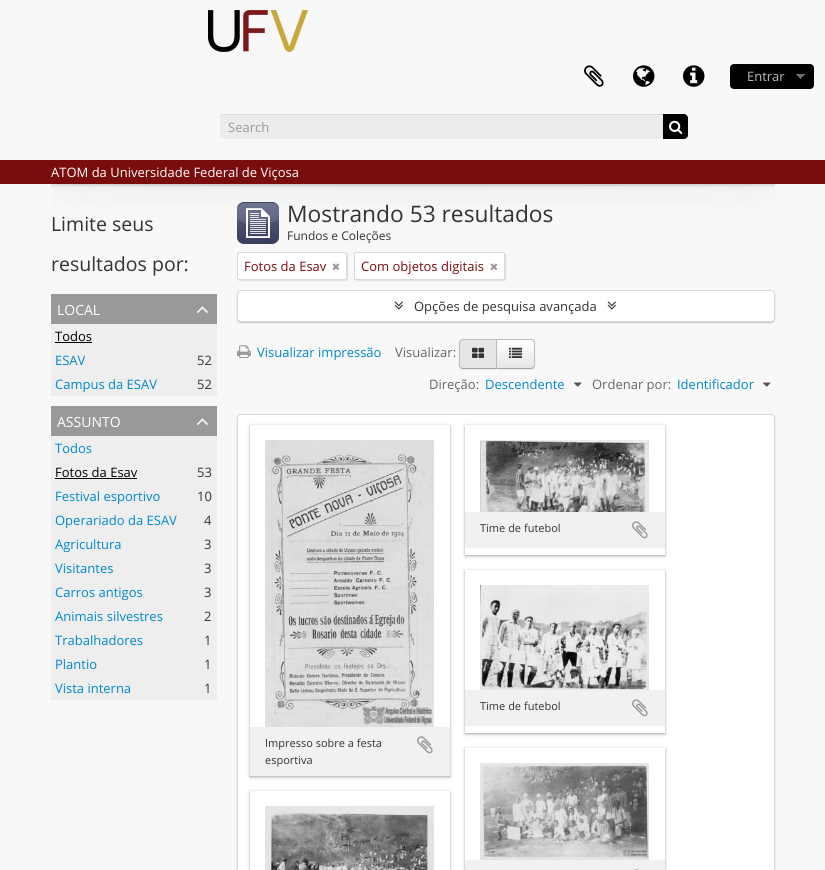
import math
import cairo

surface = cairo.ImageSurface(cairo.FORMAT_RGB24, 825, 870)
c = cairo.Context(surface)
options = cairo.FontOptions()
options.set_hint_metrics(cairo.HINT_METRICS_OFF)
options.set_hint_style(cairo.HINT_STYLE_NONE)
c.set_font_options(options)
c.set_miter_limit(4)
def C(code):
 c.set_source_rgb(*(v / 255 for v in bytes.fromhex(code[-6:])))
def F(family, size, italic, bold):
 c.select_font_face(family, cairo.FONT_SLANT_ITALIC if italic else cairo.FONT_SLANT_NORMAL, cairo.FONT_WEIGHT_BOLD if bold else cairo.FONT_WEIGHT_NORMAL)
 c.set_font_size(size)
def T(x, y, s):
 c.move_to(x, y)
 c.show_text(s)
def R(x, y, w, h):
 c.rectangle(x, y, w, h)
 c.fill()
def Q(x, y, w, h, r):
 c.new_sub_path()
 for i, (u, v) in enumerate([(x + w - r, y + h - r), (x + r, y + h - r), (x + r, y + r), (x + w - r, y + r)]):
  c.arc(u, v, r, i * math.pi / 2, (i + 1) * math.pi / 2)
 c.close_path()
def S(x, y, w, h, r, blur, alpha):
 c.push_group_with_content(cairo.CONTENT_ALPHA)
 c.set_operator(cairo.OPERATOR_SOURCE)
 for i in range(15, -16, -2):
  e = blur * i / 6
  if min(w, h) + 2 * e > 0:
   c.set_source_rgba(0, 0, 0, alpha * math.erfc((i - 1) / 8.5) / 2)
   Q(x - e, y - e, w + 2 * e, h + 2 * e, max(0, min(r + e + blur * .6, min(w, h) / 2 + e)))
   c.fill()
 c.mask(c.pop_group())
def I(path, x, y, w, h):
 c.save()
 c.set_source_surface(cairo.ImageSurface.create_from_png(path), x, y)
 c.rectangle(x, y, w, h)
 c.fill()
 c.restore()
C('f8f8f8')
c.paint()
I('1.png',208,10,100,42)
I('2.png',584,65,20,22)
I('3.png',633,65,22,22)
I('4.png',683,65,22,22)
C('000000')
Q(730,64,84,25,4)
c.fill()
I('5.png',796,74,9,5)
F('Open Sans',13,0,0)
C('bbbbbb')
T(747,81,'Entrar')
C('ececec')
Q(220,114,468,25,4)
c.fill()
c.set_source_rgba(0,0,0,0.07)
c.new_path()
c.move_to(224,115)
c.line_to(684,115)
c.curve_to(686,115,688,117,688,119)
c.curve_to(688,116,687,114,684,114)
c.line_to(224,114)
c.curve_to(221,114,220,116,220,119)
c.curve_to(220,117,222,115,224,115)
c.close_path()
c.fill()
C('999999')
T(228,132,'Search')
C('000000')
c.new_path()
c.move_to(663,114)
c.line_to(684,114)
c.curve_to(686,114,688,116,688,118)
c.line_to(688,135)
c.curve_to(688,137,686,139,684,139)
c.line_to(663,139)
c.close_path()
c.fill()
I('6.png',669,120,14,14)
C('7a0d0c')
R(0,160,825,24)
C('ffffff')
T(51,177,'ATOM da Universidade Federal de Viçosa')
I('7.png',51,184,724,23)
F('Open Sans',19.5,0,0)
C('333333')
T(51,231,'Limite seus')
T(51,271,'resultados por:')
C('999999')
R(51,294,166,30)
F('Open Sans',14,0,0)
C('ffffff')
T(57,315,'LOCAL')
I('8.png',197,306,11,7)
C('eeeeee')
R(51,324,166,72)
F('Open Sans',13,0,0)
C('000000')
T(55,341,'Todos')
R(55,342,37,1)
C('0088cc')
T(55,365,'ESAV')
C('333333')
T(197,365,'52')
C('0088cc')
T(55,389,'Campus da ESAV')
C('333333')
T(197,389,'52')
C('999999')
R(51,406,166,30)
F('Open Sans',14,0,0)
C('ffffff')
T(57,427,'ASSUNTO')
I('8.png',197,418,11,7)
C('eeeeee')
R(51,436,166,264)
F('Open Sans',13,0,0)
C('0088cc')
T(55,453,'Todos')
C('000000')
T(55,477,'Fotos da Esav')
R(55,478,82,1)
C('333333')
T(197,477,'53')
C('0088cc')
T(55,501,'Festival esportivo')
C('333333')
T(197,501,'10')
C('0088cc')
T(55,525,'Operariado da ESAV')
C('333333')
T(204,525,'4')
C('0088cc')
T(55,549,'Agricultura')
C('333333')
T(204,549,'3')
C('0088cc')
T(55,573,'Visitantes')
C('333333')
T(204,573,'3')
C('0088cc')
T(55,597,'Carros antigos')
C('333333')
T(204,597,'3')
C('0088cc')
T(55,621,'Animais silvestres')
C('333333')
T(204,621,'2')
C('0088cc')
T(55,645,'Trabalhadores')
C('333333')
T(204,645,'1')
C('0088cc')
T(55,669,'Plantio')
C('333333')
T(204,669,'1')
C('0088cc')
T(55,693,'Vista interna')
C('333333')
T(204,693,'1')
I('9.png',237,202,42,42)
F('Open Sans',22.75,0,0)
T(287,222,'Mostrando 53 resultados')
F('Open Sans',12,0,0)
T(287,240,'Fundos e Coleções')
C('000000')
S(238,253,110,28,2,.5,.1)
C('ffffff')
Q(237.5,252.5,109,27,1.5)
c.fill_preserve()
C('d9d9d9')
c.set_line_width(1)
c.stroke()
F('Open Sans',13,0,0)
C('7a0d0c')
T(244,271,'Fotos da Esav')
I('10.png',332,263,8,7)
C('000000')
S(355,253,151,28,2,.5,.1)
C('ffffff')
Q(354.5,252.5,150,27,1.5)
c.fill_preserve()
C('d9d9d9')
c.stroke()
C('7a0d0c')
T(361,271,'Com objetos digitais')
I('10.png',490,263,8,7)
C('000000')
S(237,291,538,32,4,.5,.2)
C('ffffff')
Q(237.5,290.5,537,31,3.5)
c.fill_preserve()
C('d9d9d9')
c.stroke()
I('11.png',394,301,9,9)
C('333333')
T(414,311,'Opções de pesquisa avançada')
I('11.png',607,301,9,9)
I('12.png',237,345,14,14)
C('0088cc')
T(257,357,'Visualizar impressão')
C('666666')
T(395,357,'Visualizar:')
C('000000')
S(496,340,39,30,4,1,.05)
c.save()
c.new_path()
c.move_to(496,339)
c.line_to(531,339)
c.curve_to(533,339,535,341,535,343)
c.line_to(535,365)
c.curve_to(535,367,533,369,531,369)
c.line_to(496,369)
c.close_path()
c.clip()
gradient = cairo.LinearGradient(516,340,516,368)
gradient.add_color_stop_rgba(0,1,1,1,1)
gradient.add_color_stop_rgba(1,0.902,0.902,0.902,1)
c.set_source(gradient)
R(497,340,38,28)
c.restore()
C('bbbbbb')
c.new_path()
c.move_to(496,339)
c.line_to(497,340)
c.line_to(531,340)
c.curve_to(532,340,532.5,340.5,533,341)
c.line_to(534,340)
c.curve_to(533,339.5,532,339,531,339)
c.close_path()
c.fill()
c.new_path()
c.move_to(535,365)
c.line_to(535,343)
c.curve_to(535,342,534.5,341,534,340)
c.line_to(533,341)
c.curve_to(533.5,341.5,534,342,534,343)
c.line_to(534,365)
c.curve_to(534,366,533.5,366.5,533,367)
c.line_to(534,368)
c.curve_to(534.5,367,535,366,535,365)
c.close_path()
c.fill()
C('a2a2a2')
c.new_path()
c.move_to(531,369)
c.curve_to(532,369,533,368.5,534,368)
c.line_to(533,367)
c.curve_to(532.5,367.5,532,368,531,368)
c.line_to(497,368)
c.line_to(496,369)
c.close_path()
c.fill()
C('000000')
S(459,340,38,30,4,1,.05)
C('e6e6e6')
c.new_path()
c.move_to(463,339)
c.line_to(497,339)
c.line_to(497,369)
c.line_to(463,369)
c.curve_to(461,369,459,367,459,365)
c.line_to(459,343)
c.curve_to(459,341,461,339,463,339)
c.close_path()
c.fill()
C('bbbbbb')
c.new_path()
c.move_to(463,339)
c.curve_to(462,339,461,339.5,460,340)
c.line_to(461,341)
c.curve_to(461.5,340.5,462,340,463,340)
c.line_to(496,340)
c.line_to(497,339)
c.close_path()
c.fill()
c.new_path()
c.move_to(497,339)
c.line_to(496,340)
c.line_to(496,368)
c.line_to(497,369)
c.close_path()
c.fill()
C('a2a2a2')
c.new_path()
c.move_to(497,369)
c.line_to(496,368)
c.line_to(463,368)
c.curve_to(462,368,461.5,367.5,461,367)
c.line_to(460,368)
c.curve_to(461,368.5,462,369,463,369)
c.close_path()
c.fill()
C('bbbbbb')
c.new_path()
c.move_to(459,343)
c.line_to(459,365)
c.curve_to(459,366,459.5,367,460,368)
c.line_to(461,367)
c.curve_to(460.5,366.5,460,366,460,365)
c.line_to(460,343)
c.curve_to(460,342,460.5,341.5,461,341)
c.line_to(460,340)
c.curve_to(459.5,341,459,342,459,343)
c.close_path()
c.fill()
I('13.png',472,347,13,11)
I('14.png',509,347,13,11)
C('666666')
T(429,389,'Direção:')
C('0088cc')
T(485,389,'Descendente')
I('15.png',574,382,8,5)
C('666666')
T(592,389,'Ordenar por:')
C('0088cc')
T(677,389,'Identificador')
I('15.png',763,382,8,5)
C('000000')
S(237,415,538,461,4,.5,.2)
C('ffffff')
Q(237.5,414.5,537,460,3.5)
c.fill_preserve()
C('d9d9d9')
c.stroke()
c.save()
c.set_fill_rule(cairo.FILL_RULE_EVEN_ODD)
c.new_path()
c.move_to(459,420)
c.line_to(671,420)
c.line_to(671,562)
c.line_to(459,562)
c.close_path()
c.move_to(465,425)
c.line_to(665,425)
c.line_to(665,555)
c.line_to(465,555)
c.close_path()
c.clip()
C('191919')
S(465,426,200,130,0,1.5,.4)
c.restore()
I('16.png',480,440,169,72)
C('f2f0f0')
R(465,512,200,36)
F('Open Sans',11,0,0)
C('333333')
T(480,532,'Time de futebol')
I('17.png',632,521,16,18)
c.save()
c.set_fill_rule(cairo.FILL_RULE_EVEN_ODD)
c.new_path()
c.move_to(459,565)
c.line_to(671,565)
c.line_to(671,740)
c.line_to(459,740)
c.close_path()
c.move_to(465,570)
c.line_to(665,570)
c.line_to(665,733)
c.line_to(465,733)
c.close_path()
c.clip()
C('191919')
S(465,571,200,163,0,1.5,.4)
c.restore()
I('18.png',480,585,169,105)
C('f2f0f0')
R(465,690,200,36)
C('333333')
T(480,710,'Time de futebol')
I('17.png',632,699,16,18)
c.save()
c.set_fill_rule(cairo.FILL_RULE_EVEN_ODD)
c.new_path()
c.move_to(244,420)
c.line_to(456,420)
c.line_to(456,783)
c.line_to(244,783)
c.close_path()
c.move_to(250,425)
c.line_to(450,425)
c.line_to(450,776)
c.line_to(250,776)
c.close_path()
c.clip()
C('191919')
S(250,426,200,351,0,1.5,.4)
c.restore()
I('19.png',265,440,169,287)
C('f2f0f0')
R(250,727,200,49)
C('333333')
T(265,747,'Impresso sobre a festa')
I('17.png',417,736,16,18)
T(265,764,'esportiva')
c.save()
c.set_fill_rule(cairo.FILL_RULE_EVEN_ODD)
c.new_path()
c.move_to(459,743)
c.line_to(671,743)
c.line_to(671,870)
c.line_to(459,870)
c.close_path()
c.move_to(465,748)
c.line_to(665,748)
c.line_to(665,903)
c.line_to(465,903)
c.close_path()
c.clip()
C('191919')
S(465,749,200,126,0,1.5,.4)
c.restore()
I('20.png',480,763,169,97)
C('f2f0f0')
R(465,860,200,10)
I('21.png',634,869,5,1)
c.save()
c.set_fill_rule(cairo.FILL_RULE_EVEN_ODD)
c.new_path()
c.move_to(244,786)
c.line_to(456,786)
c.line_to(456,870)
c.line_to(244,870)
c.close_path()
c.move_to(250,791)
c.line_to(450,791)
c.line_to(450,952)
c.line_to(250,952)
c.close_path()
c.clip()
C('191919')
S(250,792,200,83,0,1.5,.4)
c.restore()
I('22.png',265,806,169,64)
surface.write_to_png('o.png')
